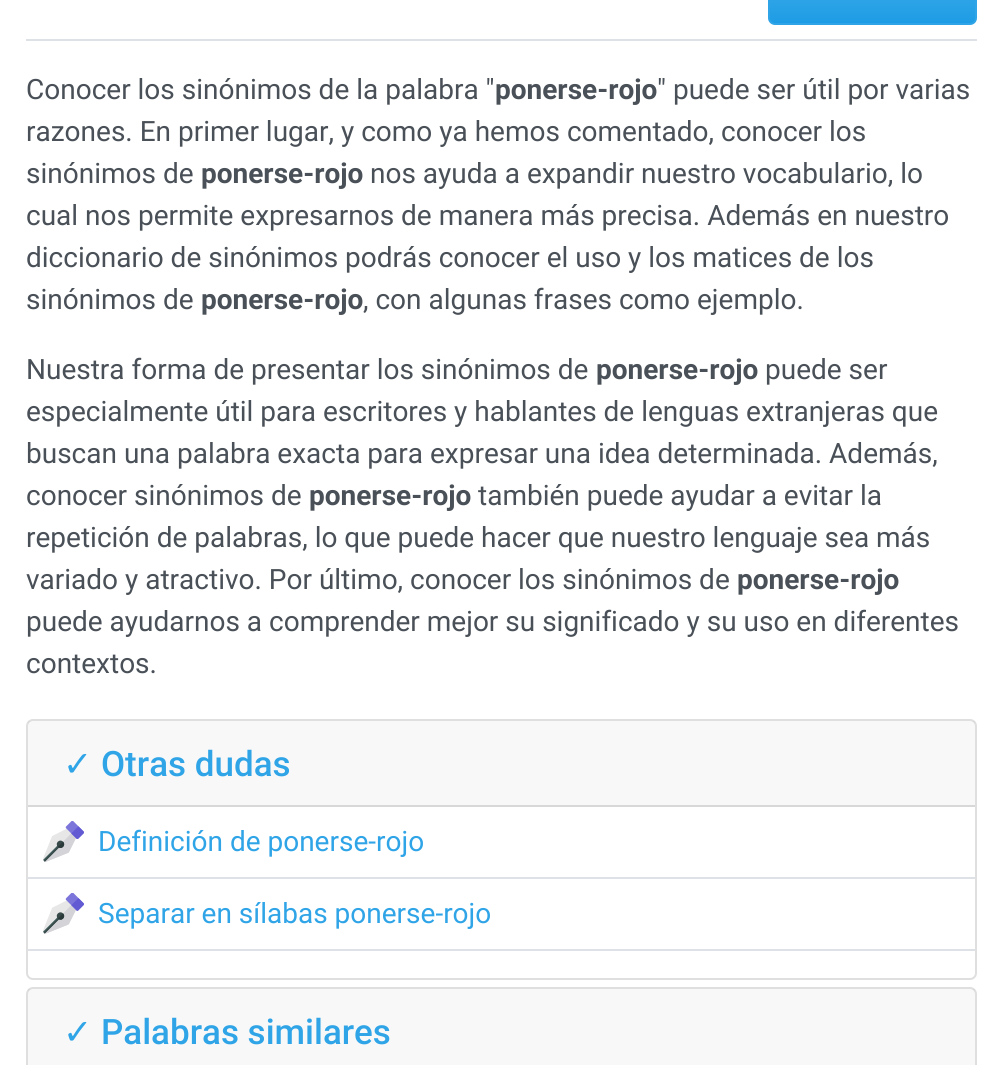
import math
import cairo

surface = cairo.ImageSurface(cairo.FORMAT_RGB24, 1002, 1065)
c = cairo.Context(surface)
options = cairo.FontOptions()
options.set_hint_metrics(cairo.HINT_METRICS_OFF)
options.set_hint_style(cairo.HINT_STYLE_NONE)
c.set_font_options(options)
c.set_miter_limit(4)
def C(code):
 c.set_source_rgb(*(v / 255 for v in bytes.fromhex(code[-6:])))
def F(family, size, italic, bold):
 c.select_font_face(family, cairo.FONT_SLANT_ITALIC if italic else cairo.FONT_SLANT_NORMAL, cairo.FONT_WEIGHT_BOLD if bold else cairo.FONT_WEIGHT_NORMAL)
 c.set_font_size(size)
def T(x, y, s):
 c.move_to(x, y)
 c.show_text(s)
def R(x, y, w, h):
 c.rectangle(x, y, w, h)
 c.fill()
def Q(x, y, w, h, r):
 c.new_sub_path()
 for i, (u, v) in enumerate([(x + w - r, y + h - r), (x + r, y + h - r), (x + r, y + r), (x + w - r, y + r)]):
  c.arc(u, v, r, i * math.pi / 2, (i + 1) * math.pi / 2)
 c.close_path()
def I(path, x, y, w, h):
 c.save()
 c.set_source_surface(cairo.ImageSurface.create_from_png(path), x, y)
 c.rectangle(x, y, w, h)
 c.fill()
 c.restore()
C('ffffff')
c.paint()
C('dee2e6')
R(26,39,951,2)
gradient = cairo.LinearGradient(872,-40,872,23)
gradient.add_color_stop_rgba(0,0.329,0.706,0.922,1)
gradient.add_color_stop_rgba(.6,0.184,0.643,0.906,1)
gradient.add_color_stop_rgba(1,0.114,0.612,0.898,1)
c.set_source(gradient)
R(770,0,205,23)
Q(769,-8,207,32,6)
C('2fa4e7')
c.stroke()
F('Roboto',28,0,0)
C('495057')
T(26,99,'Conocer los sinónimos de la palabra "')
F('Roboto',28,0,1)
T(495,99,'ponerse-rojo')
F('Roboto',28,0,0)
T(657,99,'" puede ser útil por varias')
T(26,141,'razones. En primer lugar, y como ya hemos comentado, conocer los')
T(26,183,'sinónimos de')
F('Roboto',28,0,1)
T(201,183,'ponerse-rojo')
F('Roboto',28,0,0)
T(370,183,'nos ayuda a expandir nuestro vocabulario, lo')
T(26,225,'cual nos permite expresarnos de manera más precisa. Además en nuestro')
T(26,267,'diccionario de sinónimos podrás conocer el uso y los matices de los')
T(26,309,'sinónimos de')
F('Roboto',28,0,1)
T(201,309,'ponerse-rojo')
F('Roboto',28,0,0)
T(363,309,', con algunas frases como ejemplo.')
T(26,379,'Nuestra forma de presentar los sinónimos de')
F('Roboto',28,0,1)
T(596,379,'ponerse-rojo')
F('Roboto',28,0,0)
T(765,379,'puede ser')
T(26,421,'especialmente útil para escritores y hablantes de lenguas extranjeras que')
T(26,463,'buscan una palabra exacta para expresar una idea determinada. Además,')
T(26,505,'conocer sinónimos de')
F('Roboto',28,0,1)
T(309,505,'ponerse-rojo')
F('Roboto',28,0,0)
T(478,505,'también puede ayudar a evitar la')
T(26,547,'repetición de palabras, lo que puede hacer que nuestro lenguaje sea más')
T(26,589,'variado y atractivo. Por último, conocer los sinónimos de')
F('Roboto',28,0,1)
T(737,589,'ponerse-rojo')
F('Roboto',28,0,0)
T(26,631,'puede ayudarnos a comprender mejor su significado y su uso en diferentes')
T(26,673,'contextos.')
Q(27,720,949,259,6)
C('dfdfdf')
c.stroke()
c.set_source_rgba(0,0,0,0.03)
R(28,721,947,84)
C('d8d8d8')
R(28,805,947,2)
F('DejaVu Sans',35,0,0)
C('2fa4e7')
T(63,776,'✓')
F('Roboto Medium',35,0,0)
T(101,776,'Otras dudas')
C('dee2e6')
R(28,877,947,2)
I('1.png',43,821,41,41)
F('Roboto',28,0,0)
C('2fa4e7')
T(98,851,'Definición de ponerse-rojo')
C('dee2e6')
R(28,949,947,2)
I('2.png',43,893,41,41)
C('2fa4e7')
T(98,923,'Separar en sílabas ponerse-rojo')
Q(27,988,949,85,6)
C('dfdfdf')
c.stroke()
c.set_source_rgba(0,0,0,0.03)
R(28,989,947,76)
F('DejaVu Sans',35,0,0)
C('2fa4e7')
T(63,1044,'✓')
F('Roboto Medium',35,0,0)
T(101,1044,'Palabras similares')
surface.write_to_png('o.png')
